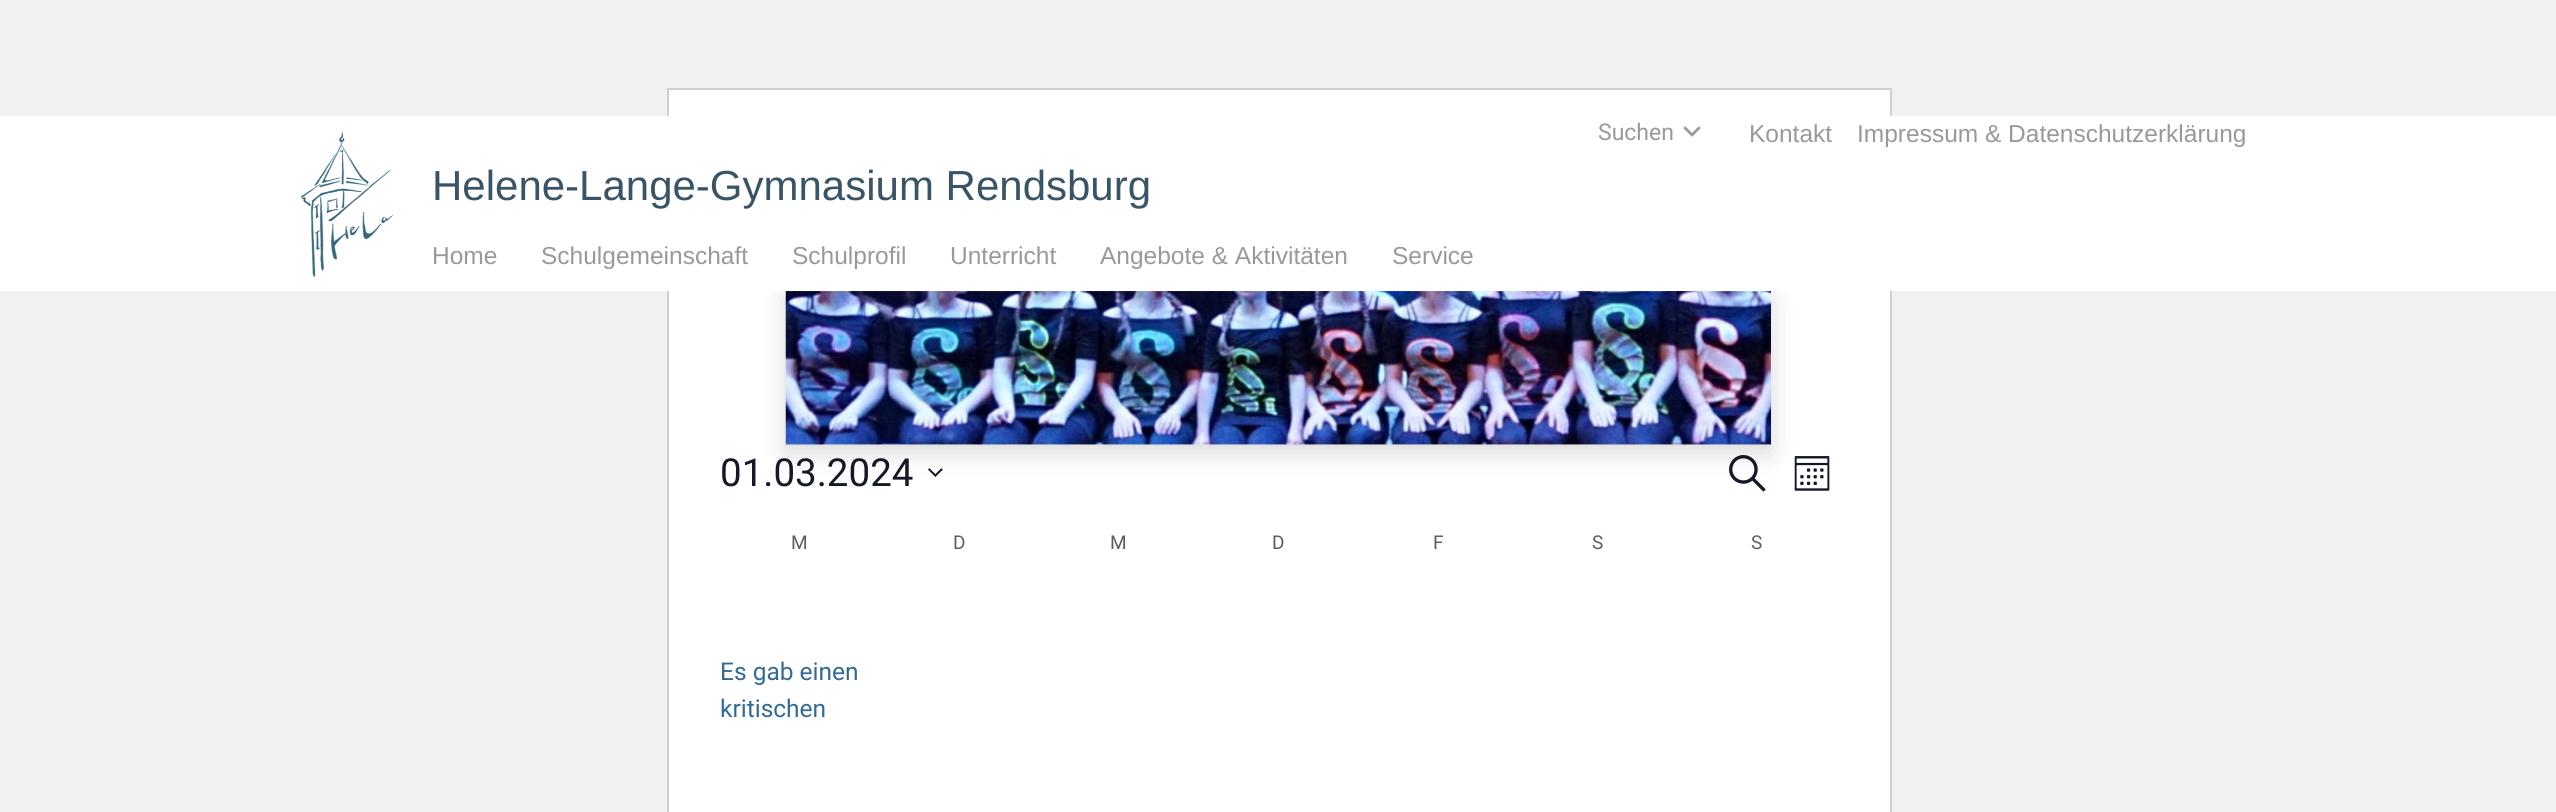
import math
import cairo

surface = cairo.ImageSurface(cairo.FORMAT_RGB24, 2556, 812)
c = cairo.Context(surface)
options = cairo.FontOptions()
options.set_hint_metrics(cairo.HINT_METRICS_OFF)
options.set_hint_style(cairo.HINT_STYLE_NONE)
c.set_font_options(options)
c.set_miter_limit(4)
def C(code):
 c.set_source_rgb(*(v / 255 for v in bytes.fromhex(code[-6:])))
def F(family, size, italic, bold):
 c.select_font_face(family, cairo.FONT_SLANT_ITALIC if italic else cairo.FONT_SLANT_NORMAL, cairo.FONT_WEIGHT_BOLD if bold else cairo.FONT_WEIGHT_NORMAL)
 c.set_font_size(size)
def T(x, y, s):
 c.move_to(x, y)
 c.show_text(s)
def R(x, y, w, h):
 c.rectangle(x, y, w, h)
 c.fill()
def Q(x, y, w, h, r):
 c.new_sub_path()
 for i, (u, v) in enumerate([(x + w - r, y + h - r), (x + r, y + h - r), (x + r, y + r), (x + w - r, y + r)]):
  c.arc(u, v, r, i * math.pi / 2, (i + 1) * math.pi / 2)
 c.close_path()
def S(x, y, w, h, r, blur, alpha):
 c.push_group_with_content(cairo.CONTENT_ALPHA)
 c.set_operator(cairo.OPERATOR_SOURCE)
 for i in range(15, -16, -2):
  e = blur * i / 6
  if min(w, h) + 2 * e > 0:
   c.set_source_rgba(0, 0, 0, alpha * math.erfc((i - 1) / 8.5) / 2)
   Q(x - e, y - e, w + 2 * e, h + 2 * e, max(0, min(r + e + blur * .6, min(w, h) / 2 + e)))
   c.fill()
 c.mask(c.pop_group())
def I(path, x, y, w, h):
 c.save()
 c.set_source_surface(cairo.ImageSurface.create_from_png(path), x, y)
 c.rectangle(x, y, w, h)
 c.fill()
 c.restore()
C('f1f1f1')
c.paint()
C('ffffff')
c.rectangle(668,89,1223,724)
c.fill_preserve()
C('ccd0d4')
c.stroke()
C('000000')
S(786,299,985,154,0,13,.15)
C('ffffff')
R(0,116,2556,175)
F('Roboto',23,0,0)
C('999999')
T(1598,140,'Suchen')
I('1.png',1683,126,18,11)
F('Liberation Sans',24.5,0,0)
T(1749,142,'Kontakt')
T(1857,142,'Impressum & Datenschutzerklärung')
I('2.png',300,131,94,146)
F('Liberation Sans',42,0,0)
C('385466')
T(432,200,'Helene-Lange-Gymnasium Rendsburg')
F('Liberation Sans',24.5,0,0)
C('999999')
T(432,264,'Home')
T(541,264,'Schulgemeinschaft')
T(792,264,'Schulprofil')
T(950,264,'Unterricht')
T(1100,264,'Angebote & Aktivitäten')
T(1392,264,'Service')
I('3.png',785,291,986,154)
F('Roboto',38.5,0,0)
C('141827')
T(720,486,'01.03.2024')
I('4.png',928,468,15,9)
I('5.png',1729,455,37,37)
I('6.png',1794,456,36,35)
F('Roboto',19,0,0)
C('5d5d5d')
T(791,549,'M')
T(953,549,'D')
T(1110,549,'M')
T(1272,549,'D')
T(1433,549,'F')
T(1592,549,'S')
T(1751,549,'S')
F('Roboto',24.5,0,0)
C('346a96')
T(720,680,'Es gab einen')
T(720,717,'kritischen')
surface.write_to_png('o.png')
